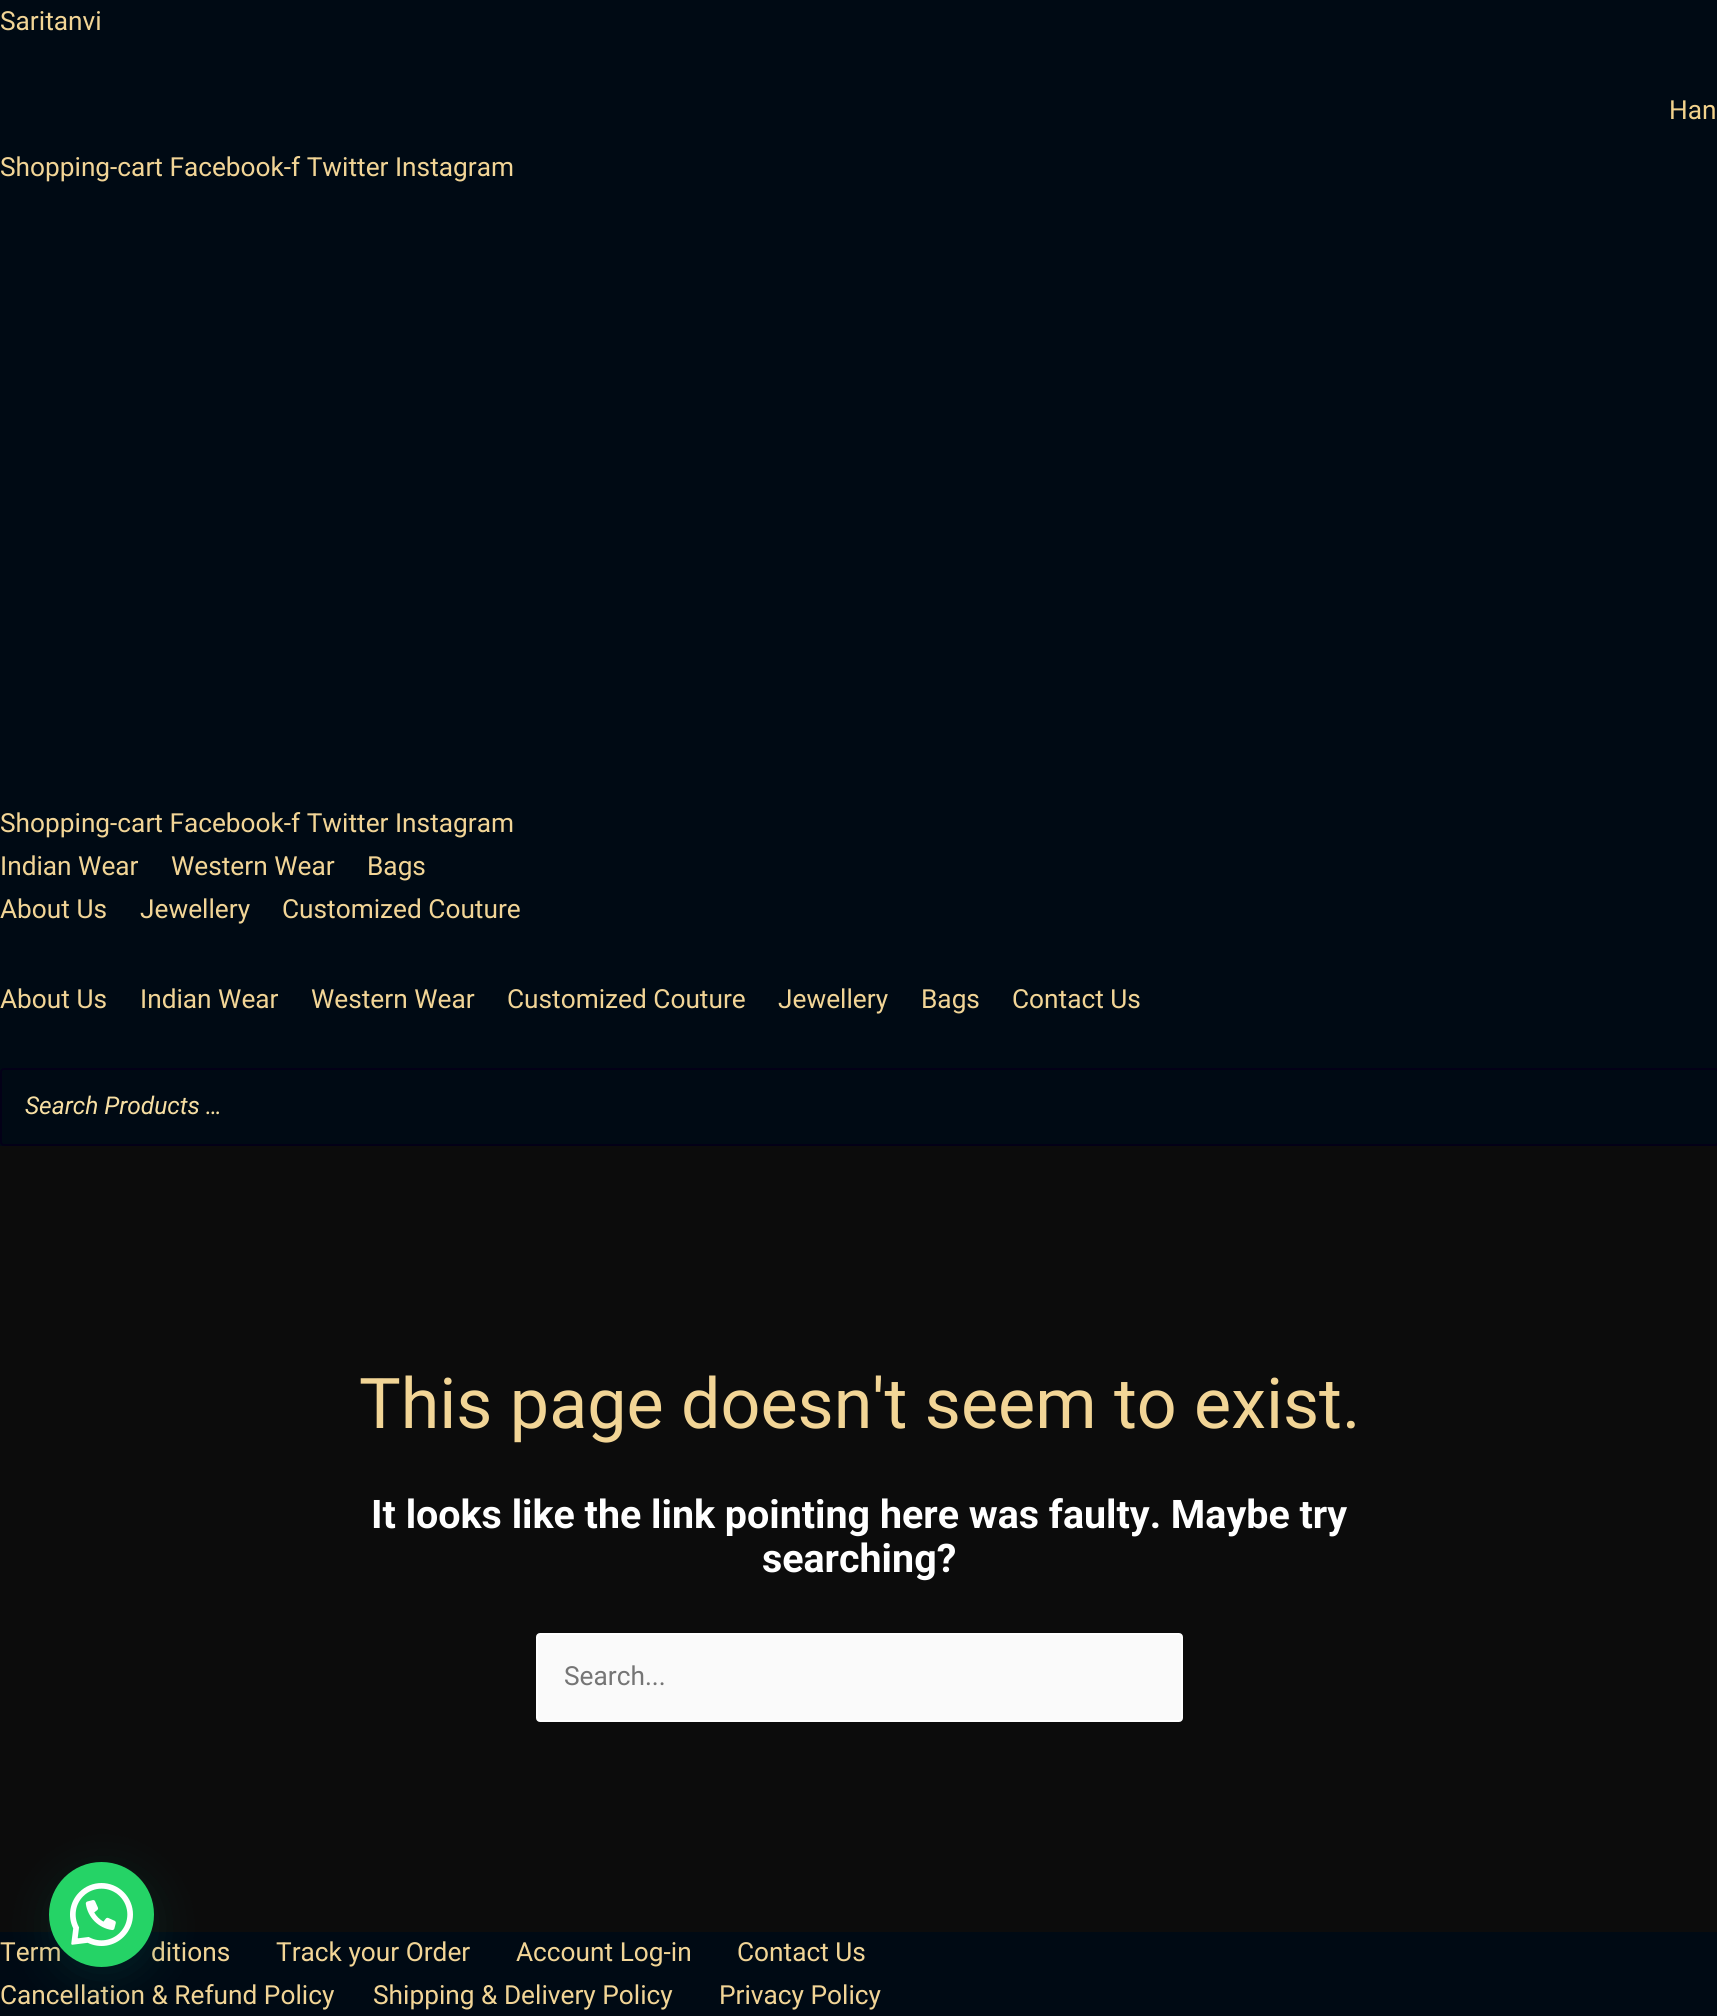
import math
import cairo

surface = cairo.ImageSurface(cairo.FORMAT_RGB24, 1717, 2016)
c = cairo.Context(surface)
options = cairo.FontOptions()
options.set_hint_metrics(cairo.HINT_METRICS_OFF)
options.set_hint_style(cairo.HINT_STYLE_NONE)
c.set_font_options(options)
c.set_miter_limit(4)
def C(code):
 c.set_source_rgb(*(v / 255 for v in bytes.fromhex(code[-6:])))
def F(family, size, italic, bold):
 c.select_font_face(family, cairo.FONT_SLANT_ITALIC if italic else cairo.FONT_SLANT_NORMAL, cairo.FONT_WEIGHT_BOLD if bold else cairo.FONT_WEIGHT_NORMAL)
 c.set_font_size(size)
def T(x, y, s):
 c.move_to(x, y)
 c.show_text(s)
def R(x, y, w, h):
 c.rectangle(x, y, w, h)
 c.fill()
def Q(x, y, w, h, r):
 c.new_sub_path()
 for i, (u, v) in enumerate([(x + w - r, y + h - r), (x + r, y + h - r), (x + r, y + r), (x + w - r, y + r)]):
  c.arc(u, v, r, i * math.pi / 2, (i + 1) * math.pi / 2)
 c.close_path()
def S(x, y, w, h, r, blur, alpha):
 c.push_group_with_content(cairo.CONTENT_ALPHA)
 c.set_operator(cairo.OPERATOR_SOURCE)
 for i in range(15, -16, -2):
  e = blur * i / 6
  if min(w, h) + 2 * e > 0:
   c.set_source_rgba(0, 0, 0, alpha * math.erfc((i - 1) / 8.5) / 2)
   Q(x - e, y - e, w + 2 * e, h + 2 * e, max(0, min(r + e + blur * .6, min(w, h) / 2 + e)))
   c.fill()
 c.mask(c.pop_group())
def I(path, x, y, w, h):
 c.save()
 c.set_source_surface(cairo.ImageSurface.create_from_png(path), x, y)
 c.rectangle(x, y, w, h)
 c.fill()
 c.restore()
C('000a14')
c.paint()
F('Roboto',26.25,0,0)
C('f2d596')
T(0,30,'Saritanvi')
C('f2d28c')
T(1669,119,'Han')
C('f2d596')
T(0,176,'Shopping-cart Facebook-f Twitter Instagram')
T(0,832,'Shopping-cart Facebook-f Twitter Instagram')
T(0,875,'Indian Wear')
T(171,875,'Western Wear')
T(367,875,'Bags')
T(0,918,'About Us')
T(140,918,'Jewellery')
T(282,918,'Customized Couture')
T(0,1008,'About Us')
T(140,1008,'Indian Wear')
T(311,1008,'Western Wear')
T(507,1008,'Customized Couture')
T(778,1008,'Jewellery')
T(921,1008,'Bags')
T(1012,1008,'Contact Us')
Q(1,1069,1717,76,3)
C('030017')
c.stroke()
F('Roboto',24.5,1,0)
C('f7dfa3')
T(25,1114,'Search Products …')
C('0c0c0c')
R(0,1146,1717,786)
F('Roboto',70,0,0)
C('f2d596')
T(359,1428,'This page doesn\'t seem to exist.')
F('Roboto',39.4,0,1)
C('ffffff')
T(371,1528,'It looks like the link pointing here was faulty. Maybe try')
T(762,1572,'searching?')
C('fafafa')
Q(537,1634,645,87,3)
c.fill_preserve()
C('ffffff')
c.stroke()
F('Roboto',26.25,0,0)
C('757575')
T(564,1685,'Search...')
C('f2d596')
T(0,1961,'Term')
T(151,1961,'ditions')
T(276,1961,'Track your Order')
T(516,1961,'Account Log-in')
T(737,1961,'Contact Us')
T(0,2004,'Cancellation & Refund Policy')
T(373,2004,'Shipping & Delivery Policy')
T(719,2004,'Privacy Policy')
C('075e54')
S(51,1873,105,105,52.5,21,.24)
C('25d366')
c.arc(101.5,1914.5,52.5,0,2 * math.pi)
c.fill()
I('1.png',70,1883,63,63)
surface.write_to_png('o.png')
